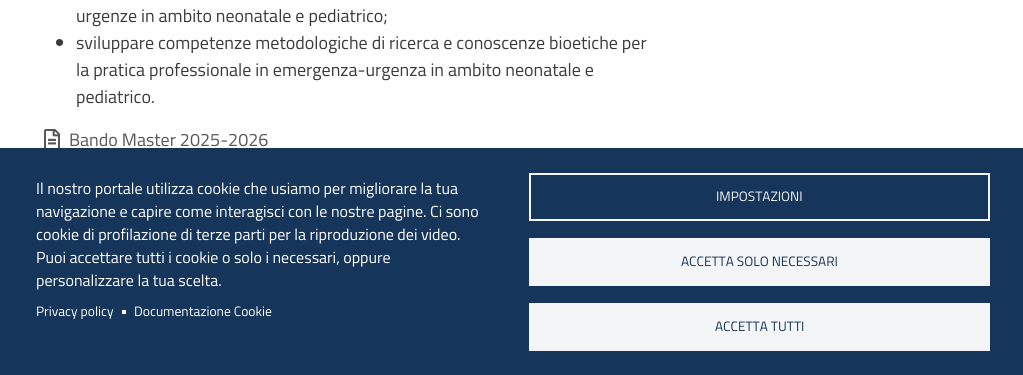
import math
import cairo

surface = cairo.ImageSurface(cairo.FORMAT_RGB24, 1023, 375)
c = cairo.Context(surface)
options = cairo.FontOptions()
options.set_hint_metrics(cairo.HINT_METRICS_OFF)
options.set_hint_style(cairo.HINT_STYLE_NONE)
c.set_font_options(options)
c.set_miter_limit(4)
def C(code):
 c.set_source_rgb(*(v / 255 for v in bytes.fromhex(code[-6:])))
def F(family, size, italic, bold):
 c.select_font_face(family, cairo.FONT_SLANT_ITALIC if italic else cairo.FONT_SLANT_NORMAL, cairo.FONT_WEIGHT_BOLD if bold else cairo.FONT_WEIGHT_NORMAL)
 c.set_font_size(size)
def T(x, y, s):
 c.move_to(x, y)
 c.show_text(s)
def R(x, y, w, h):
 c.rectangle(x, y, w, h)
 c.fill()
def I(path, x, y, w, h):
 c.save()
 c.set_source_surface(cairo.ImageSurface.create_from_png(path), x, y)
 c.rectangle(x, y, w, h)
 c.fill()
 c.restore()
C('ffffff')
c.paint()
F('Titillium Web',18,0,0)
C('3b3b3b')
T(76,22,'urgenze in ambito neonatale e pediatrico;')
c.new_path()
c.arc(59.5,42.5,3.5,0,2 * math.pi)
c.fill()
T(76,49,'sviluppare competenze metodologiche di ricerca e conoscenze bioetiche per')
T(76,76,'la pratica professionale in emergenza-urgenza in ambito neonatale e')
T(76,103,'pediatrico.')
I('1.png',44,129,16,19)
C('575757')
T(69,146,'Bando Master 2025-2026')
C('16355a')
R(0,148,1023,227)
F('Titillium Web',16,0,0)
C('ffffff')
T(36,194,'Il nostro portale utilizza cookie che usiamo per migliorare la tua')
T(36,217,'navigazione e capire come interagisci con le nostre pagine. Ci sono')
T(36,240,'cookie di profilazione di terze parti per la riproduzione dei video.')
T(36,263,'Puoi accettare tutti i cookie o solo i necessari, oppure')
T(36,286,'personalizzare la tua scelta.')
F('Titillium Web',13.6,0,0)
T(36,316,'Privacy policy')
R(122,310,4,4)
T(134,316,'Documentazione Cookie')
c.rectangle(530,174,459,46)
C('f3f5f7')
c.stroke()
T(716,201,'IMPOSTAZIONI')
R(529,238,461,48)
C('16355a')
T(681,266,'ACCETTA SOLO NECESSARI')
C('f3f5f7')
R(529,303,461,48)
C('16355a')
T(715,331,'ACCETTA TUTTI')
surface.write_to_png('o.png')
